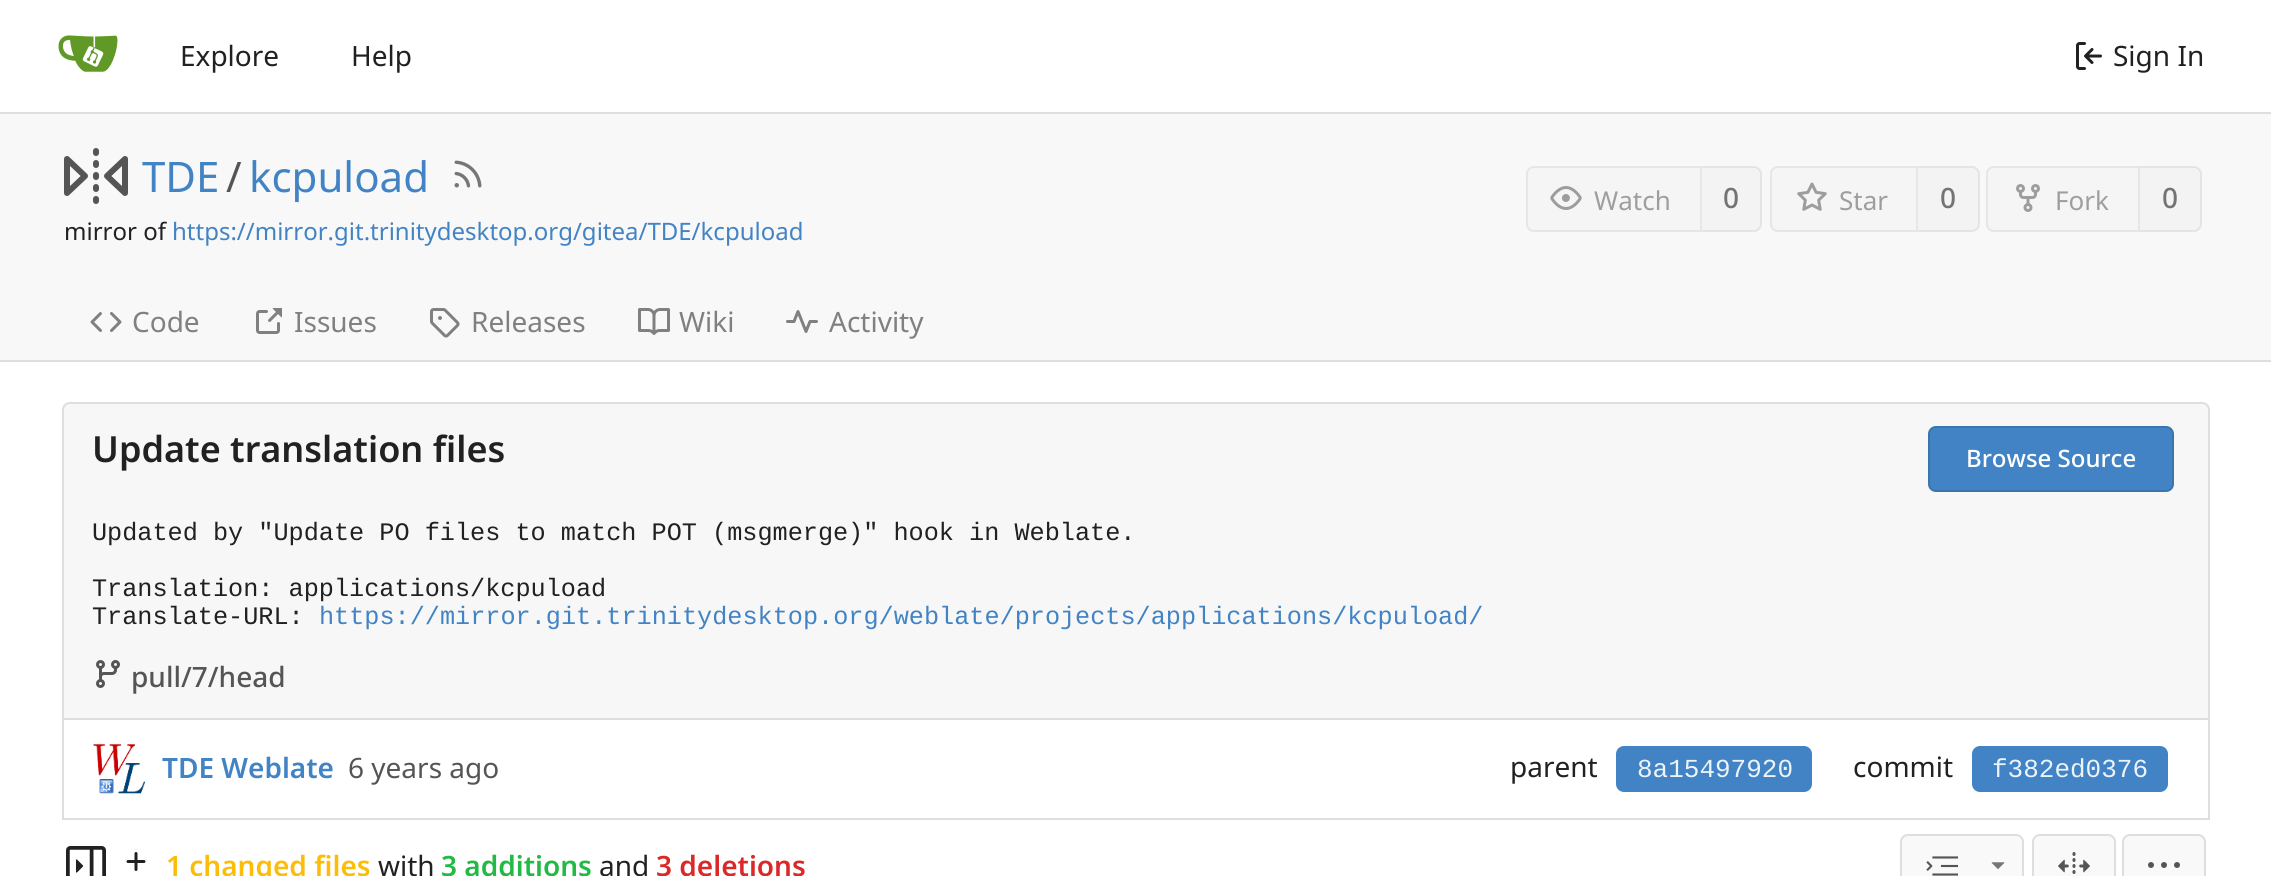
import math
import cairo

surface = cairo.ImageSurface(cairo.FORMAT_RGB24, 2271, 876)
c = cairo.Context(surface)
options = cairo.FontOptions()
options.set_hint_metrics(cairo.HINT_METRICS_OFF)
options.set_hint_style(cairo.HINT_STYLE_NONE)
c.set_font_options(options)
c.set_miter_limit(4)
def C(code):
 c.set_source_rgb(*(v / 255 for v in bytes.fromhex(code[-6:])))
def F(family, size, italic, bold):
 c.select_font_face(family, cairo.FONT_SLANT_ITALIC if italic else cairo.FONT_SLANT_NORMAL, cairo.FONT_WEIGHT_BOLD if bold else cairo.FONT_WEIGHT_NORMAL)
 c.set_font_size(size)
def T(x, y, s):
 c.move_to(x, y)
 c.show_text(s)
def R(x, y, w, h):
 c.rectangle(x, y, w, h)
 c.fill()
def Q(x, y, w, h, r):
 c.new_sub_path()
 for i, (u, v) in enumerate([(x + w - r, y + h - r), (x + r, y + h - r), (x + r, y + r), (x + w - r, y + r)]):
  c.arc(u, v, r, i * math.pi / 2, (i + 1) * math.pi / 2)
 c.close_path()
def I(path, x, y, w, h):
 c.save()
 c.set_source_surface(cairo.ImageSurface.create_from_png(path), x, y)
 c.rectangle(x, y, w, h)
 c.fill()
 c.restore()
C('ffffff')
c.paint()
C('dedede')
R(0,112,2271,2)
I('1.png',58,35,60,37)
F('Noto Sans',28,0,0)
C('212121')
T(180,66,'Explore')
T(351,66,'Help')
I('2.png',2076,42,26,28)
T(2113,66,'Sign In')
C('f8f8f8')
R(0,114,2271,246)
I('3.png',64,148,64,56)
F('Noto Sans',42,0,0)
C('4183c4')
T(142,192,'TDE')
C('555555')
T(226,192,'/')
C('4183c4')
T(249,192,'kcpuload')
I('4.png',454,160,28,28)
F('Noto Sans',24,0,0)
C('212121')
T(64,240,'mirror of')
C('4183c4')
T(172,240,'https://mirror.git.trinitydesktop.org/gitea/TDE/kcpuload')
C('f5f5f5')
c.new_path()
c.move_to(1534,167)
c.line_to(1701,167)
c.line_to(1701,231)
c.line_to(1534,231)
c.curve_to(1530,231,1527,228,1527,224)
c.line_to(1527,174)
c.curve_to(1527,170,1530,167,1534,167)
c.close_path()
c.fill_preserve()
C('e6e6e6')
c.stroke()
I('5.png',1550,186,32,24)
F('Noto Sans',26,0,0)
C('9e9e9e')
T(1594,210,'Watch')
C('f3f3f3')
c.new_path()
c.move_to(1702,166)
c.line_to(1754,166)
c.curve_to(1758.5,166,1762,169.5,1762,174)
c.line_to(1762,224)
c.curve_to(1762,228.5,1758.5,232,1754,232)
c.line_to(1702,232)
c.close_path()
c.fill()
C('e4e4e4')
c.set_fill_rule(cairo.FILL_RULE_EVEN_ODD)
c.new_path()
c.move_to(1702,166)
c.line_to(1754,166)
c.curve_to(1758,166,1762,170,1762,174)
c.line_to(1762,224)
c.curve_to(1762,228,1758,232,1754,232)
c.line_to(1702,232)
c.close_path()
c.move_to(1702,168)
c.line_to(1754,168)
c.curve_to(1757,168,1760,171,1760,174)
c.line_to(1760,224)
c.curve_to(1760,227,1757,230,1754,230)
c.line_to(1702,230)
c.close_path()
c.fill()
F('Noto Sans Medium',28,0,0)
C('747474')
T(1723,208,'0')
C('f5f5f5')
c.new_path()
c.move_to(1778,167)
c.line_to(1917,167)
c.line_to(1917,231)
c.line_to(1778,231)
c.curve_to(1774,231,1771,228,1771,224)
c.line_to(1771,174)
c.curve_to(1771,170,1774,167,1778,167)
c.close_path()
c.fill_preserve()
C('e6e6e6')
c.stroke()
I('6.png',1797,182,30,29)
F('Noto Sans',26,0,0)
C('9e9e9e')
T(1839,210,'Star')
C('f3f3f3')
c.new_path()
c.move_to(1918,166)
c.line_to(1972,166)
c.curve_to(1976.5,166,1980,169.5,1980,174)
c.line_to(1980,224)
c.curve_to(1980,228.5,1976.5,232,1972,232)
c.line_to(1918,232)
c.close_path()
c.fill()
C('e4e4e4')
c.new_path()
c.move_to(1918,166)
c.line_to(1972,166)
c.curve_to(1976,166,1980,170,1980,174)
c.line_to(1980,224)
c.curve_to(1980,228,1976,232,1972,232)
c.line_to(1918,232)
c.close_path()
c.move_to(1918,168)
c.line_to(1972,168)
c.curve_to(1975,168,1978,171,1978,174)
c.line_to(1978,224)
c.curve_to(1978,227,1975,230,1972,230)
c.line_to(1918,230)
c.close_path()
c.fill()
F('Noto Sans Medium',28,0,0)
C('747474')
T(1940,208,'0')
C('f5f5f5')
c.new_path()
c.move_to(1994,167)
c.line_to(2139,167)
c.line_to(2139,231)
c.line_to(1994,231)
c.curve_to(1990,231,1987,228,1987,224)
c.line_to(1987,174)
c.curve_to(1987,170,1990,167,1994,167)
c.close_path()
c.fill_preserve()
C('e6e6e6')
c.stroke()
I('7.png',2016,184,24,28)
F('Noto Sans',26,0,0)
C('9e9e9e')
T(2055,210,'Fork')
C('f3f3f3')
c.new_path()
c.move_to(2140,166)
c.line_to(2194,166)
c.curve_to(2198.5,166,2202,169.5,2202,174)
c.line_to(2202,224)
c.curve_to(2202,228.5,2198.5,232,2194,232)
c.line_to(2140,232)
c.close_path()
c.fill()
C('e4e4e4')
c.new_path()
c.move_to(2140,166)
c.line_to(2194,166)
c.curve_to(2198,166,2202,170,2202,174)
c.line_to(2202,224)
c.curve_to(2202,228,2198,232,2194,232)
c.line_to(2140,232)
c.close_path()
c.move_to(2140,168)
c.line_to(2194,168)
c.curve_to(2197,168,2200,171,2200,174)
c.line_to(2200,224)
c.curve_to(2200,227,2197,230,2194,230)
c.line_to(2140,230)
c.close_path()
c.fill()
F('Noto Sans Medium',28,0,0)
C('747474')
T(2162,208,'0')
I('8.png',90,312,32,20)
F('Noto Sans',28,0,0)
C('808080')
T(132,332,'Code')
I('9.png',256,308,26,26)
T(294,332,'Issues')
I('10.png',430,308,30,30)
T(471,332,'Releases')
I('11.png',638,308,32,27)
T(679,332,'Wiki')
I('12.png',786,310,32,23)
T(829,332,'Activity')
C('dedede')
R(0,360,2271,2)
C('f7f7f7')
c.new_path()
c.move_to(70,403)
c.line_to(2202,403)
c.curve_to(2206,403,2209,406,2209,410)
c.line_to(2209,719)
c.line_to(63,719)
c.line_to(63,410)
c.curve_to(63,406,66,403,70,403)
c.close_path()
c.fill_preserve()
C('dedede')
c.stroke()
F('Noto Sans SemiBold',36,0,0)
C('212121')
T(92,462,'Update translation files')
C('4183c4')
Q(1928,426,246,66,8)
c.fill()
Q(1929,427,244,64,7)
c.set_source_rgba(0,0,0,0.11)
c.stroke()
F('Noto Sans Medium',24,0,0)
C('ffffff')
T(1966,467,'Browse Source')
F('Liberation Mono',25.2,0,0)
C('212121')
T(92,540,'Updated by "Update PO files to match POT (msgmerge)" hook in Weblate.')
T(92,596,'Translation: applications/kcpuload')
T(92,624,'Translate-URL:')
C('4183c4')
T(319,624,'https://mirror.git.trinitydesktop.org/weblate/projects/applications/kcpuload/')
I('13.png',96,660,24,28)
F('Noto Sans Medium',28,0,0)
C('555555')
T(131,687,'pull/7/head')
C('dedede')
R(2208,720,2,100)
R(62,818,2148,2)
R(62,720,2,100)
I('14.png',93,743,52,51)
F('Noto Sans SemiBold',28,0,0)
C('4183c4')
T(162,778,'TDE Weblate')
F('Noto Sans',28,0,0)
C('555555')
T(348,778,'6 years ago')
C('212121')
T(1510,777,'parent')
C('4183c4')
Q(1616,746,196,46,8)
c.fill()
F('Liberation Mono',26,0,0)
C('ecf3f9')
T(1637,777,'8a15497920')
F('Noto Sans',28,0,0)
C('212121')
T(1853,777,'commit')
C('4183c4')
Q(1972,746,196,46,8)
c.fill()
F('Liberation Mono',26,0,0)
C('ecf3f9')
T(1992,777,'f382ed0376')
I('15.png',66,846,40,30)
I('16.png',126,852,20,19)
F('Noto Sans SemiBold',28,0,0)
C('fbbd08')
T(166,876,'1 changed files')
F('Noto Sans',28,0,0)
C('212121')
T(378,876,'with')
F('Noto Sans SemiBold',28,0,0)
C('21ba45')
T(441,876,'3 additions')
F('Noto Sans',28,0,0)
C('212121')
T(599,876,'and')
F('Noto Sans SemiBold',28,0,0)
C('db2828')
T(656,876,'3 deletions')
C('f9f9f9')
Q(1900,834,124,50,8)
c.fill()
Q(1901,835,122,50,7)
c.set_source_rgba(0,0,0,0.11)
c.stroke()
I('17.png',1926,856,32,20)
I('18.png',1991,862,14,7)
C('f9f9f9')
Q(2032,834,84,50,8)
c.fill()
Q(2033,835,82,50,7)
c.set_source_rgba(0,0,0,0.11)
c.stroke()
I('19.png',2058,852,32,22)
C('f9f9f9')
Q(2122,834,84,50,8)
c.fill()
Q(2123,835,82,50,7)
c.set_source_rgba(0,0,0,0.11)
c.stroke()
I('20.png',2148,862,32,6)
surface.write_to_png('o.png')
